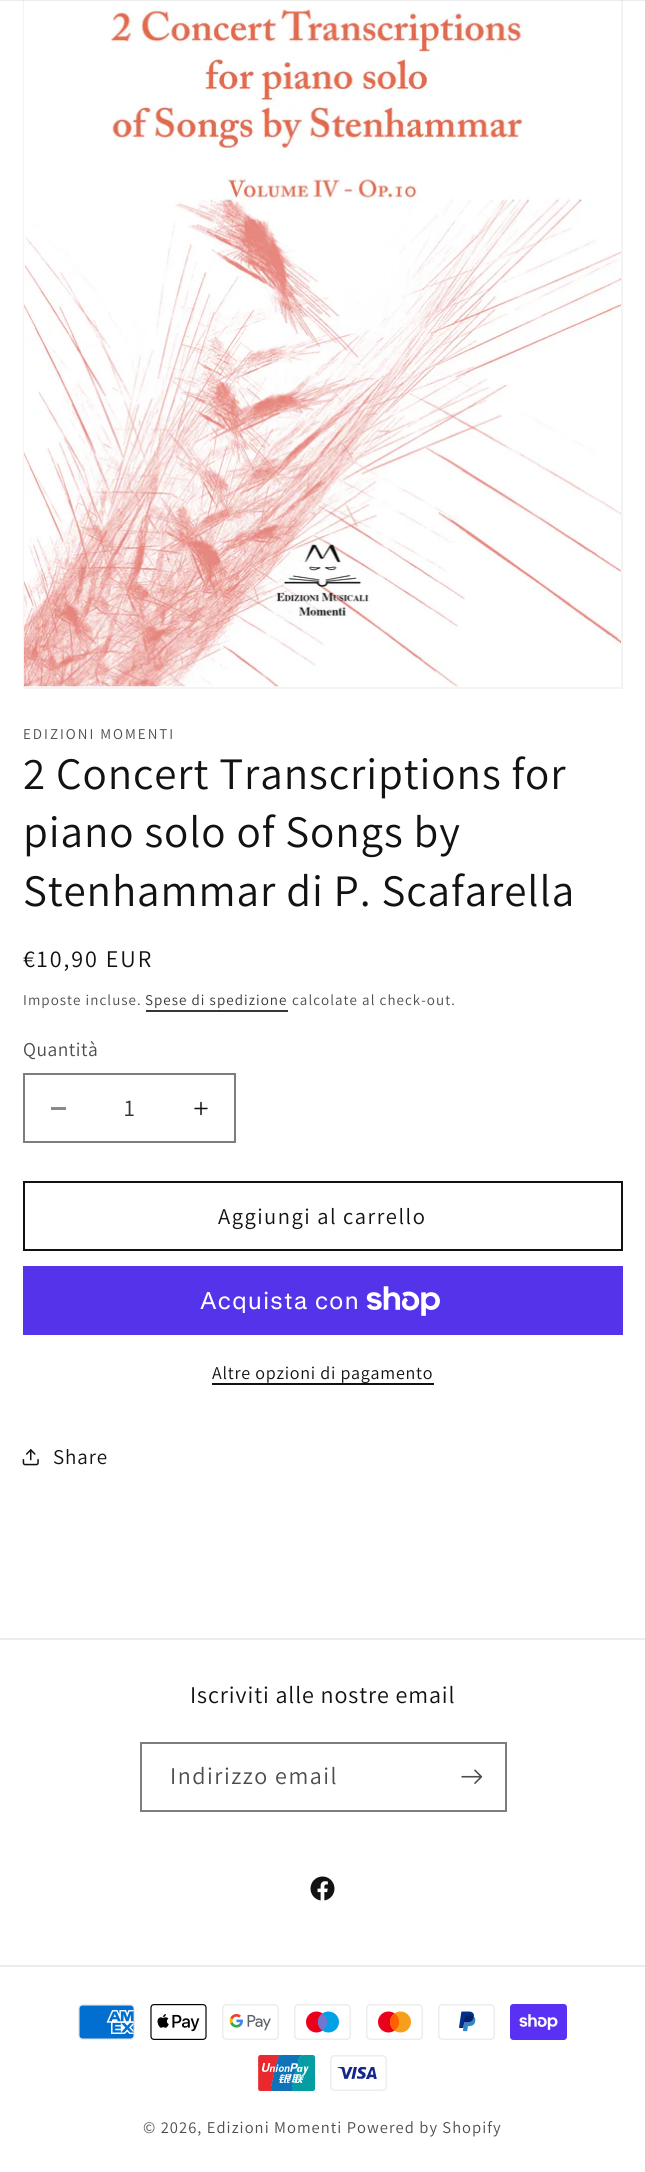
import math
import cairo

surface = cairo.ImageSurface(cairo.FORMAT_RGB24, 645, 2172)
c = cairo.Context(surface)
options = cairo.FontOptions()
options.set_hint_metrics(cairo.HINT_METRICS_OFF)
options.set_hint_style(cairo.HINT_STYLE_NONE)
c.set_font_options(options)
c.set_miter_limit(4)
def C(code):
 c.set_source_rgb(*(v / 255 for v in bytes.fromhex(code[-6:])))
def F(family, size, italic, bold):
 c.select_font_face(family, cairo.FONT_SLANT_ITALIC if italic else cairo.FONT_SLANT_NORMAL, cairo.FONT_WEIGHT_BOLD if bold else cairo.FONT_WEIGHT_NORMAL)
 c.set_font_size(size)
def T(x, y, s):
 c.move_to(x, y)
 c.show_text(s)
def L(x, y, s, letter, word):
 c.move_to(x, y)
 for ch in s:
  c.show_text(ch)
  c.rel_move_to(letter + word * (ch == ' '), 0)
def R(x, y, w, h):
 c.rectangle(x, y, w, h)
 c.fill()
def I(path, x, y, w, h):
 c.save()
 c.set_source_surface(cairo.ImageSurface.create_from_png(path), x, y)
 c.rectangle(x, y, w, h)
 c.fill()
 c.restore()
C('ffffff')
c.paint()
c.rectangle(24,-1,598,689)
C('f3f3f3')
c.stroke()
I('1.png',24,0,597,687)
c.set_source_rgba(0.071,0.071,0.071,0.08)
R(0,0,645,1)
F('Assistant',15,0,0)
C('4d4d4d')
L(23,739,'EDIZIONI MOMENTI',2,0)
F('Assistant',45,0,0)
C('121212')
L(23,789,'2 Concert Transcriptions for',.9,0)
L(23,847,'piano solo of Songs by',.9,0)
L(23,906,'Stenhammar di P. Scafarella',.9,0)
F('Assistant',24,0,0)
L(23,967,'€10,90 EUR',2,0)
F('Assistant',15,0,0)
C('4d4d4d')
L(23,1005,'Imposte incluse.',1.05,0)
C('363636')
L(145,1005,'Spese di spedizione',1.05,0)
R(146,1010,142,2)
C('4d4d4d')
L(292,1005,'calcolate al check-out.',1.05,0)
F('Assistant',19.5,0,0)
L(23,1056,'Quantità',.5,0)
C('898989')
R(51,1107,15,3)
I('2.png',194,1101,14,15)
c.rectangle(24,1074,211,68)
C('7d7d7d')
c.stroke()
F('Assistant',24,0,0)
C('363636')
T(124,1116,'1')
c.rectangle(24,1182,598,68)
C('121212')
c.stroke()
F('Assistant',22.5,0,0)
L(218,1224,'Aggiungi al carrello',1.5,0)
C('5433eb')
R(23,1266,600,69)
F('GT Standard',24,0,0)
C('ffffff')
L(200,1309,'Acquista con',.9,0)
I('3.png',366,1286,74,30)
C('121212')
R(212,1383,222,2)
F('Assistant',18,0,0)
L(212,1379,'Altre opzioni di pagamento',.75,0)
I('4.png',22,1449,17,17)
F('Assistant',21,0,0)
L(53,1464,'Share',.9,0)
C('ececec')
R(0,1638,645,2)
F('Assistant',24,0,0)
C('121212')
L(190,1703,'Iscriviti alle nostre email',.9,0)
c.rectangle(141,1743,365,68)
C('7d7d7d')
c.stroke()
C('4d4d4d')
L(170,1784,'Indirizzo email',1.5,0)
I('5.png',461,1769,22,15)
I('6.png',310,1876,25,25)
C('ececec')
R(0,1965,645,2)
I('7.png',78,2004,57,36)
I('8.png',150,2004,57,36)
I('9.png',222,2004,57,36)
I('10.png',294,2004,57,36)
I('11.png',366,2004,57,36)
I('12.png',438,2004,57,36)
I('13.png',510,2004,57,36)
I('14.png',258,2055,57,36)
I('15.png',330,2055,57,36)
F('Assistant',16.5,0,0)
C('4d4d4d')
L(143,2133,'© 2026, Edizioni Momenti Powered by Shopify',1.05,0)
surface.write_to_png('o.png')
